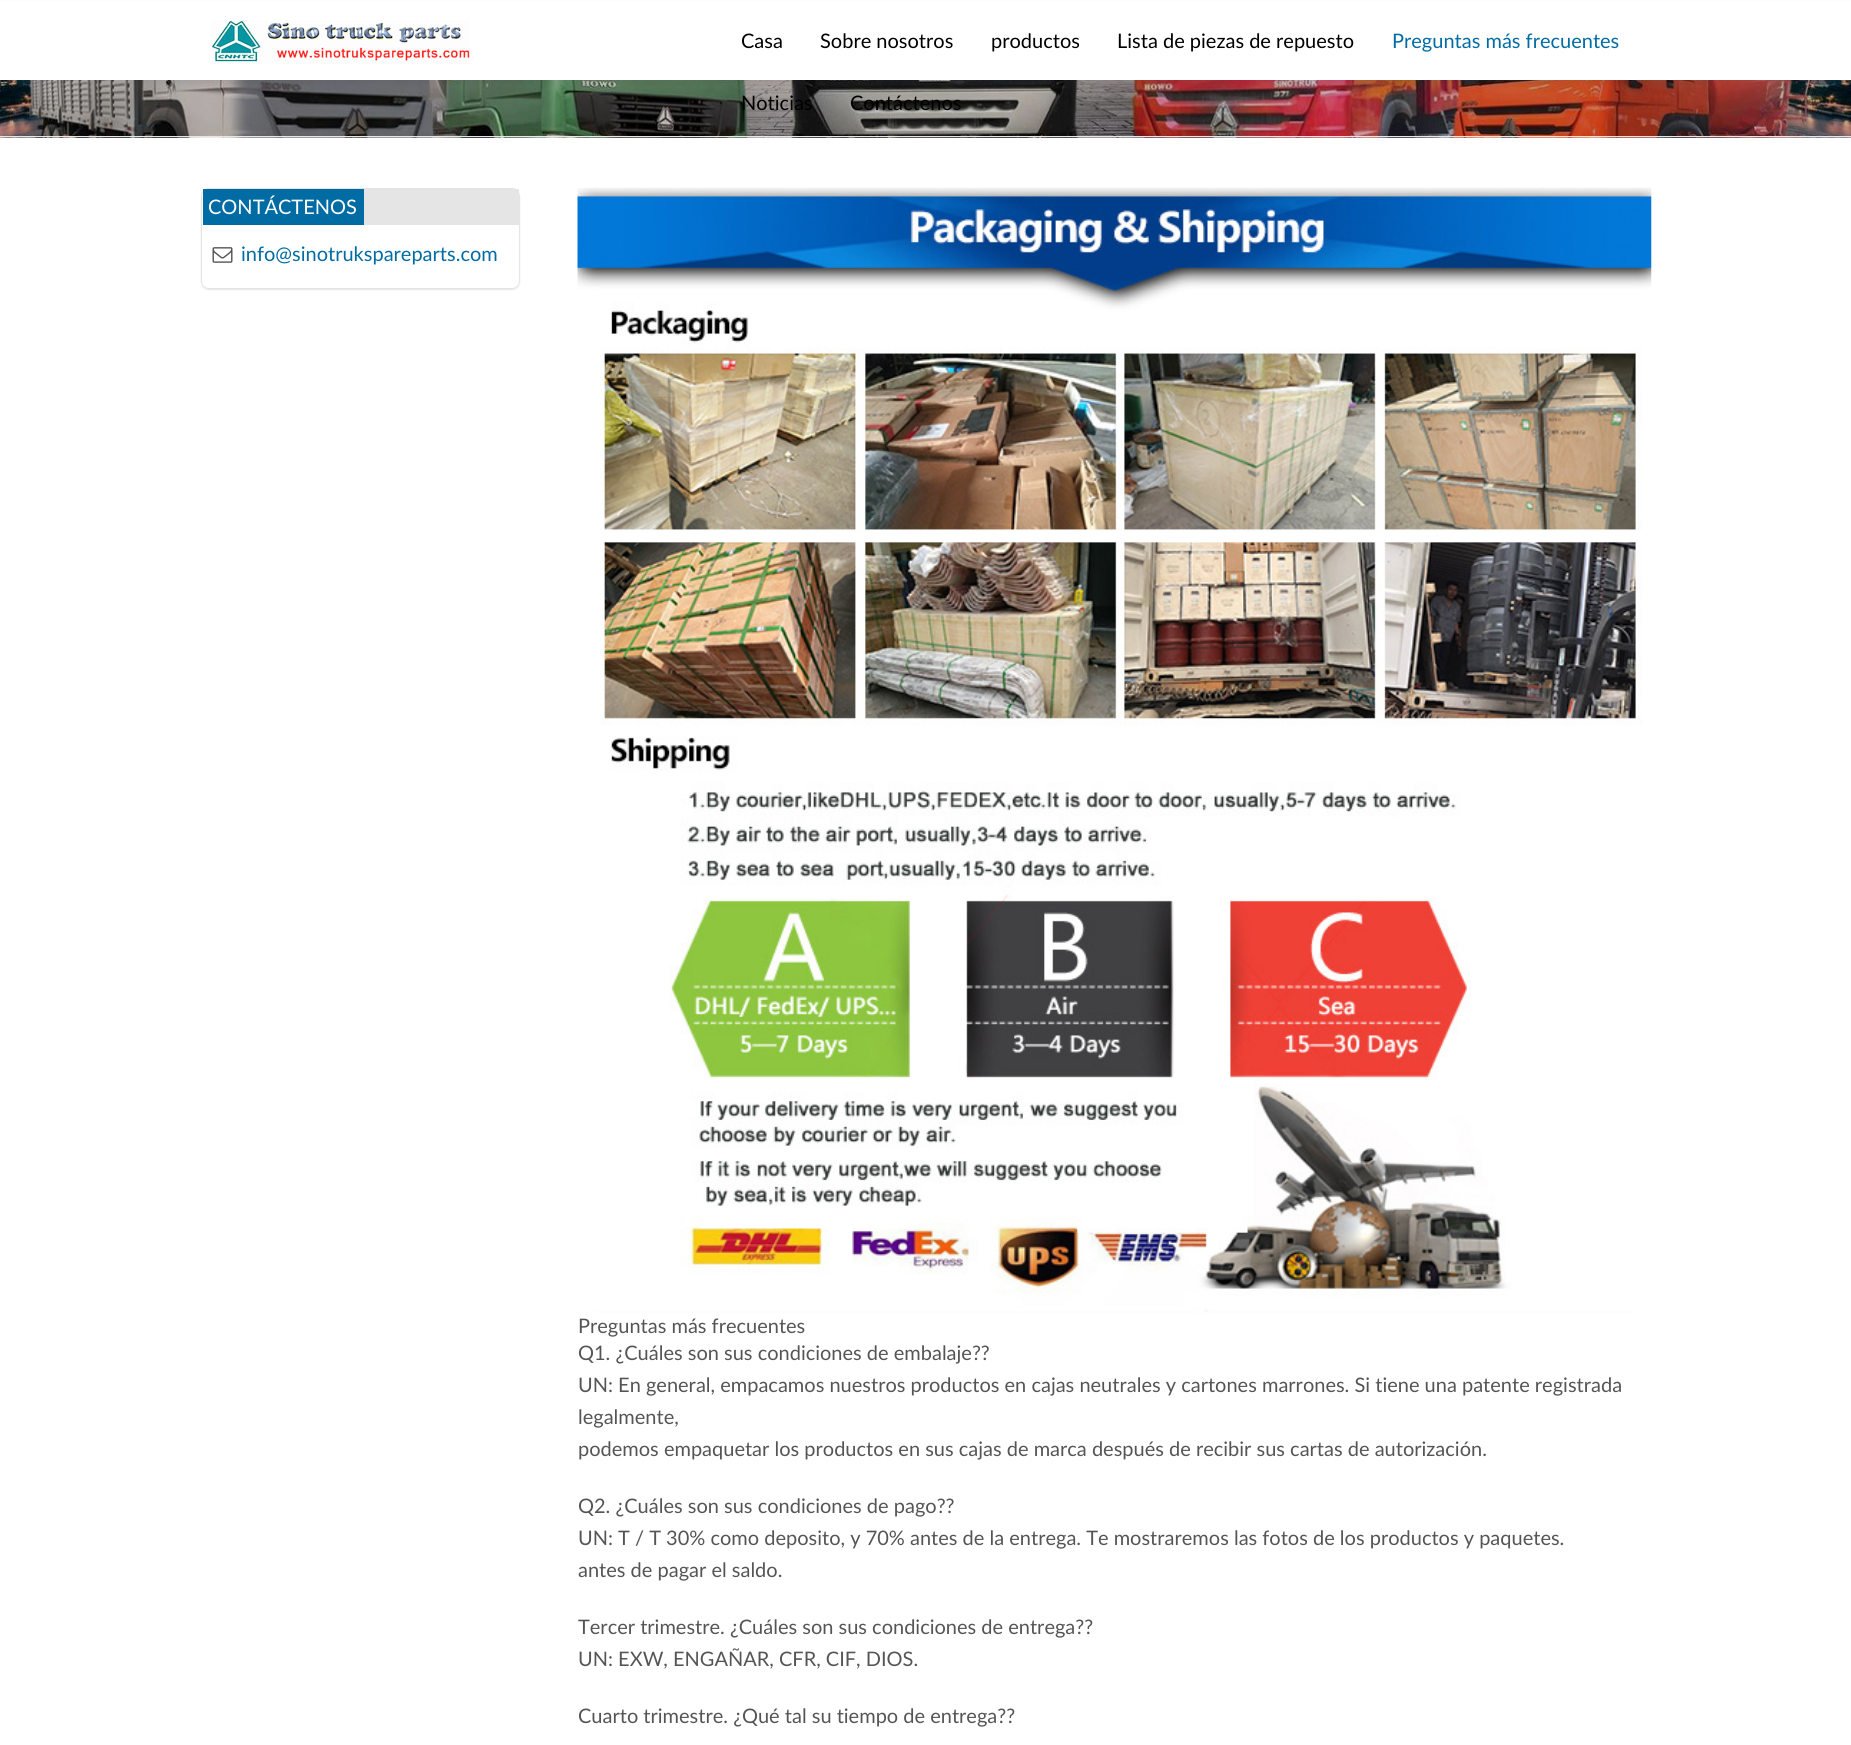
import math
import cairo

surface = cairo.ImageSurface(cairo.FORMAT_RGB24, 1851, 1745)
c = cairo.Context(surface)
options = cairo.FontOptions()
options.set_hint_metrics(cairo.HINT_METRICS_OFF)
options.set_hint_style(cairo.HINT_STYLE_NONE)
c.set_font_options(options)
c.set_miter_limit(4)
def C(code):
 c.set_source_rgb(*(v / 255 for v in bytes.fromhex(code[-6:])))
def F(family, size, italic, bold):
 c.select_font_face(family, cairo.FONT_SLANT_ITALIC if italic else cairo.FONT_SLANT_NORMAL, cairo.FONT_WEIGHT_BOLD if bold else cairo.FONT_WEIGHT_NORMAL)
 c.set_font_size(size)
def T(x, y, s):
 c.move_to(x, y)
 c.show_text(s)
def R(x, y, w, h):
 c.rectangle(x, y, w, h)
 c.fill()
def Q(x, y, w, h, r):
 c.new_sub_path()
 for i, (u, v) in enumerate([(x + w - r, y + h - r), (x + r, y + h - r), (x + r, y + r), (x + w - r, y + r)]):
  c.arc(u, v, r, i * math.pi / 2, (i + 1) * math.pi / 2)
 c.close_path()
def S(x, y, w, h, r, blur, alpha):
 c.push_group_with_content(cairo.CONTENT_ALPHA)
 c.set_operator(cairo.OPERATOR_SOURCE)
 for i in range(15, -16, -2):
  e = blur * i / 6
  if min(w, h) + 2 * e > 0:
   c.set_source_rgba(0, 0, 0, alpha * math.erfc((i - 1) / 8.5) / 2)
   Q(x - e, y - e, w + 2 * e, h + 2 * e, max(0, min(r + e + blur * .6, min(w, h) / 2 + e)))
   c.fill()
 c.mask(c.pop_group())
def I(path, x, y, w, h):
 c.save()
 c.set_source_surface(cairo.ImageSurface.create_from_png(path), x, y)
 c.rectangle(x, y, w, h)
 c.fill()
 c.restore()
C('ffffff')
c.paint()
I('2.png',0,80,1851,58)
C('333333')
S(0,4,1851,80,0,3,.1)
C('ffffff')
R(0,1,1851,79)
I('1.png',211,20,259,44)
F('Lato',20,0,0)
C('000000')
T(741,48,'Casa')
T(820,48,'Sobre nosotros')
T(991,48,'productos')
T(1117,48,'Lista de piezas de repuesto')
C('006ca3')
T(1392,48,'Preguntas más frecuentes')
C('000000')
T(741,110,'Noticias')
T(850,110,'Contáctenos')
C('e5e5e5')
R(0,136,1851,1)
c.save()
c.set_fill_rule(cairo.FILL_RULE_EVEN_ODD)
c.new_path()
c.move_to(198,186)
c.line_to(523,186)
c.line_to(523,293)
c.line_to(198,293)
c.close_path()
c.move_to(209,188)
c.line_to(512,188)
c.curve_to(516.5,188,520,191.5,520,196)
c.line_to(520,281)
c.curve_to(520,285.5,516.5,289,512,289)
c.line_to(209,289)
c.curve_to(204.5,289,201,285.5,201,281)
c.line_to(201,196)
c.curve_to(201,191.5,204.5,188,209,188)
c.close_path()
c.clip()
C('000000')
S(201,189,319,101,8,.5,.1)
c.restore()
Q(201.5,188.5,318,100,7.5)
c.set_line_width(1)
c.stroke()
R(364,189,155,36)
C('006ca3')
R(203,189,161,36)
C('ffffff')
T(208,214,'CONTÁCTENOS')
I('3.png',212,247,21,16)
C('006ca3')
T(241,261,'info@sinotrukspareparts.com')
I('4.png',577,187,1075,1126)
C('555555')
T(578,1333,'Preguntas más frecuentes')
T(578,1360,'Q1. ¿Cuáles son sus condiciones de embalaje??')
T(578,1392,'UN: En general, empacamos nuestros productos en cajas neutrales y cartones marrones. Si tiene una patente registrada')
T(578,1424,'legalmente,')
T(578,1456,'podemos empaquetar los productos en sus cajas de marca después de recibir sus cartas de autorización.')
T(578,1513,'Q2. ¿Cuáles son sus condiciones de pago??')
T(578,1545,'UN: T / T 30% como deposito, y 70% antes de la entrega. Te mostraremos las fotos de los productos y paquetes.')
T(578,1577,'antes de pagar el saldo.')
T(578,1634,'Tercer trimestre. ¿Cuáles son sus condiciones de entrega??')
T(578,1666,'UN: EXW, ENGAÑAR, CFR, CIF, DIOS.')
T(578,1723,'Cuarto trimestre. ¿Qué tal su tiempo de entrega??')
surface.write_to_png('o.png')
